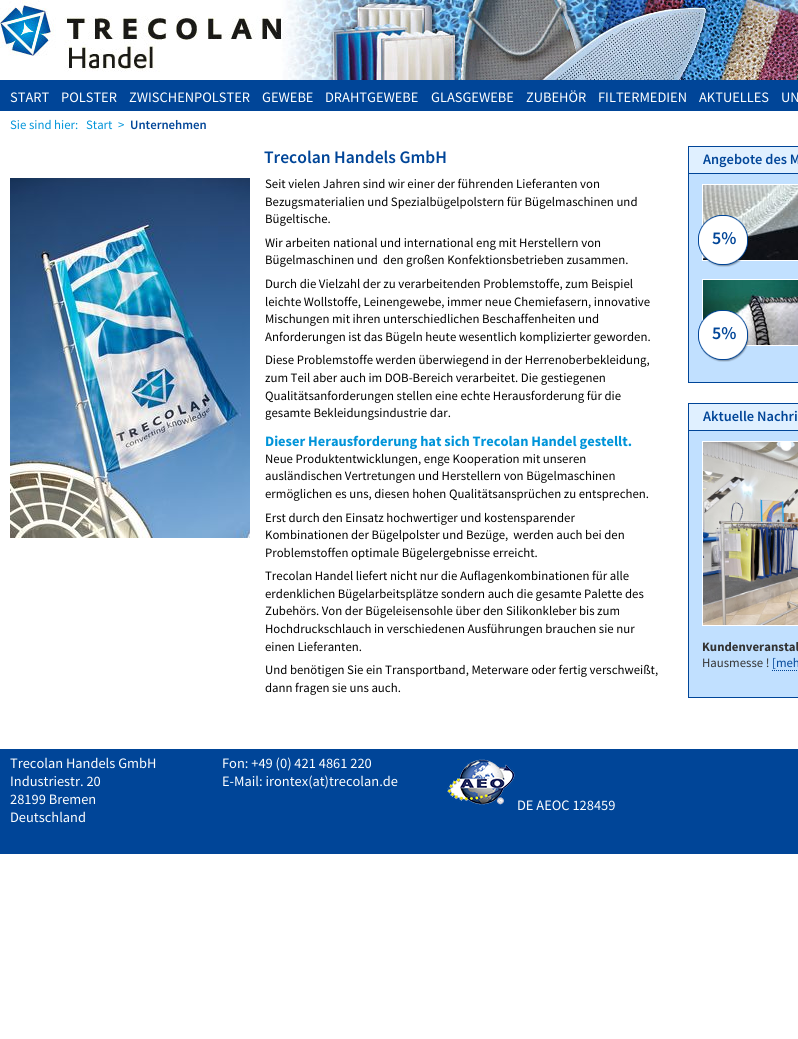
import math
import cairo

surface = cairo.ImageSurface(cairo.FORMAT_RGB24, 798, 1039)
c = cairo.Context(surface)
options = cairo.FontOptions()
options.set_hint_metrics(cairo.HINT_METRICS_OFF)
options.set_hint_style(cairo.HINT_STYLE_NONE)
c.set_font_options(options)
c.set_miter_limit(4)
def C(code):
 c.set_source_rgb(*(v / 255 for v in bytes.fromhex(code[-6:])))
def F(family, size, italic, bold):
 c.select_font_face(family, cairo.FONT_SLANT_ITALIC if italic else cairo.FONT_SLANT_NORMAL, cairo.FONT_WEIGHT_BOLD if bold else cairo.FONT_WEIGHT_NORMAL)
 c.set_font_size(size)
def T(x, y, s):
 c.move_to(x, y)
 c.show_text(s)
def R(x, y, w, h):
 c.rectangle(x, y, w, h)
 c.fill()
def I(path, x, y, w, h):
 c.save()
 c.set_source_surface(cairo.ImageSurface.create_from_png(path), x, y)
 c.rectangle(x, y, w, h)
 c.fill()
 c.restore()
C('ffffff')
c.paint()
I('1.png',0,0,798,80)
C('004598')
R(0,80,798,31)
F('Source Sans Pro',14.4,0,0)
C('ffffff')
T(10,102,'START')
T(61,102,'POLSTER')
T(129,102,'ZWISCHENPOLSTER')
T(262,102,'GEWEBE')
T(325,102,'DRAHTGEWEBE')
T(431,102,'GLASGEWEBE')
T(526,102,'ZUBEHÖR')
T(598,102,'FILTERMEDIEN')
T(699,102,'AKTUELLES')
T(781,102,'UN')
F('Source Sans Pro',12.8,0,0)
C('0094d9')
T(10,129,'Sie sind hier:')
T(86,129,'Start')
T(118,129,'>')
F('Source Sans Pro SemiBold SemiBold',12.8,0,0)
C('004598')
T(130,129,'Unternehmen')
F('Source Sans Pro SemiBold SemiBold',17.6,0,0)
T(264,163,'Trecolan Handels GmbH')
I('2.png',10,178,240,360)
F('Source Sans Pro',12.8,0,0)
C('000000')
T(265,188,'Seit vielen Jahren sind wir einer der führenden Lieferanten von')
T(265,206,'Bezugsmaterialien und Spezialbügelpolstern für Bügelmaschinen und')
T(265,223,'Bügeltische.')
T(265,247,'Wir arbeiten national und international eng mit Herstellern von')
T(265,264,'Bügelmaschinen und  den großen Konfektionsbetrieben zusammen.')
T(265,288,'Durch die Vielzahl der zu verarbeitenden Problemstoffe, zum Beispiel')
T(265,306,'leichte Wollstoffe, Leinengewebe, immer neue Chemiefasern, innovative')
T(265,323,'Mischungen mit ihren unterschiedlichen Beschaffenheiten und')
T(265,341,'Anforderungen ist das Bügeln heute wesentlich komplizierter geworden.')
T(265,364,'Diese Problemstoffe werden überwiegend in der Herrenoberbekleidung,')
T(265,382,'zum Teil aber auch im DOB-Bereich verarbeitet. Die gestiegenen')
T(265,400,'Qualitätsanforderungen stellen eine echte Herausforderung für die')
T(265,417,'gesamte Bekleidungsindustrie dar.')
F('Source Sans Pro',14.4,0,1)
C('0094d9')
T(265,446,'Dieser Herausforderung hat sich Trecolan Handel gestellt.')
F('Source Sans Pro',12.8,0,0)
C('000000')
T(265,463,'Neue Produktentwicklungen, enge Kooperation mit unseren')
T(265,480,'ausländischen Vertretungen und Herstellern von Bügelmaschinen')
T(265,498,'ermöglichen es uns, diesen hohen Qualitätsansprüchen zu entsprechen.')
T(265,522,'Erst durch den Einsatz hochwertiger und kostensparender')
T(265,539,'Kombinationen der Bügelpolster und Bezüge,  werden auch bei den')
T(265,557,'Problemstoffen optimale Bügelergebnisse erreicht.')
T(265,580,'Trecolan Handel liefert nicht nur die Auflagenkombinationen für alle')
T(265,598,'erdenklichen Bügelarbeitsplätze sondern auch die gesamte Palette des')
T(265,615,'Zubehörs. Von der Bügeleisensohle über den Silikonkleber bis zum')
T(265,633,'Hochdruckschlauch in verschiedenen Ausführungen brauchen sie nur')
T(265,651,'einen Lieferanten.')
T(265,674,'Und benötigen Sie ein Transportband, Meterware oder fertig verschweißt,')
T(265,692,'dann fragen sie uns auch.')
C('c1e0ff')
R(689,174,109,208)
c.rectangle(688.5,146.5,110,236)
C('004598')
c.set_line_width(1)
c.stroke()
C('e0f0ff')
R(689,147,109,26)
C('004598')
R(689,173,109,1)
F('Source Sans Pro SemiBold SemiBold',14.4,0,0)
T(703,164,'Angebote des M')
c.rectangle(702.5,184.5,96,76)
C('ffffff')
c.stroke()
I('3.png',703,185,95,75)
I('4.png',698,215,51,52)
F('Source Sans Pro SemiBold SemiBold',18,0,0)
C('004598')
T(712,244,'5%')
c.rectangle(702.5,279.5,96,66)
C('ffffff')
c.stroke()
I('5.png',703,280,95,65)
I('6.png',698,310,51,52)
C('004598')
T(712,339,'5%')
C('c1e0ff')
R(689,431,109,266)
c.rectangle(688.5,403.5,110,294)
C('004598')
c.stroke()
C('e0f0ff')
R(689,404,109,26)
C('004598')
R(689,430,109,1)
F('Source Sans Pro SemiBold SemiBold',14.4,0,0)
T(703,421,'Aktuelle Nachri')
c.rectangle(702.5,441.5,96,184)
C('ffffff')
c.stroke()
I('7.png',703,442,95,183)
F('Source Sans Pro',12.8,0,1)
C('333333')
T(702,651,'Kundenveranstal')
F('Source Sans Pro',12.8,0,0)
T(702,667,'Hausmesse !')
C('004598')
T(772,667,'[meh')
c.new_path()
c.move_to(772,670.5)
c.line_to(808,670.5)
c.set_dash([1,1])
c.stroke()
R(0,749,798,105)
F('Source Sans Pro',14.4,0,0)
C('ffffff')
T(10,768,'Trecolan Handels GmbH')
T(10,786,'Industriestr. 20')
T(10,804,'28199 Bremen')
T(10,822,'Deutschland')
T(222,768,'Fon: +49 (0) 421 4861 220')
T(222,786,'E-Mail: irontex(at)trecolan.de')
I('8.png',447,759,68,46)
T(517,810,'DE AEOC 128459')
surface.write_to_png('o.png')
